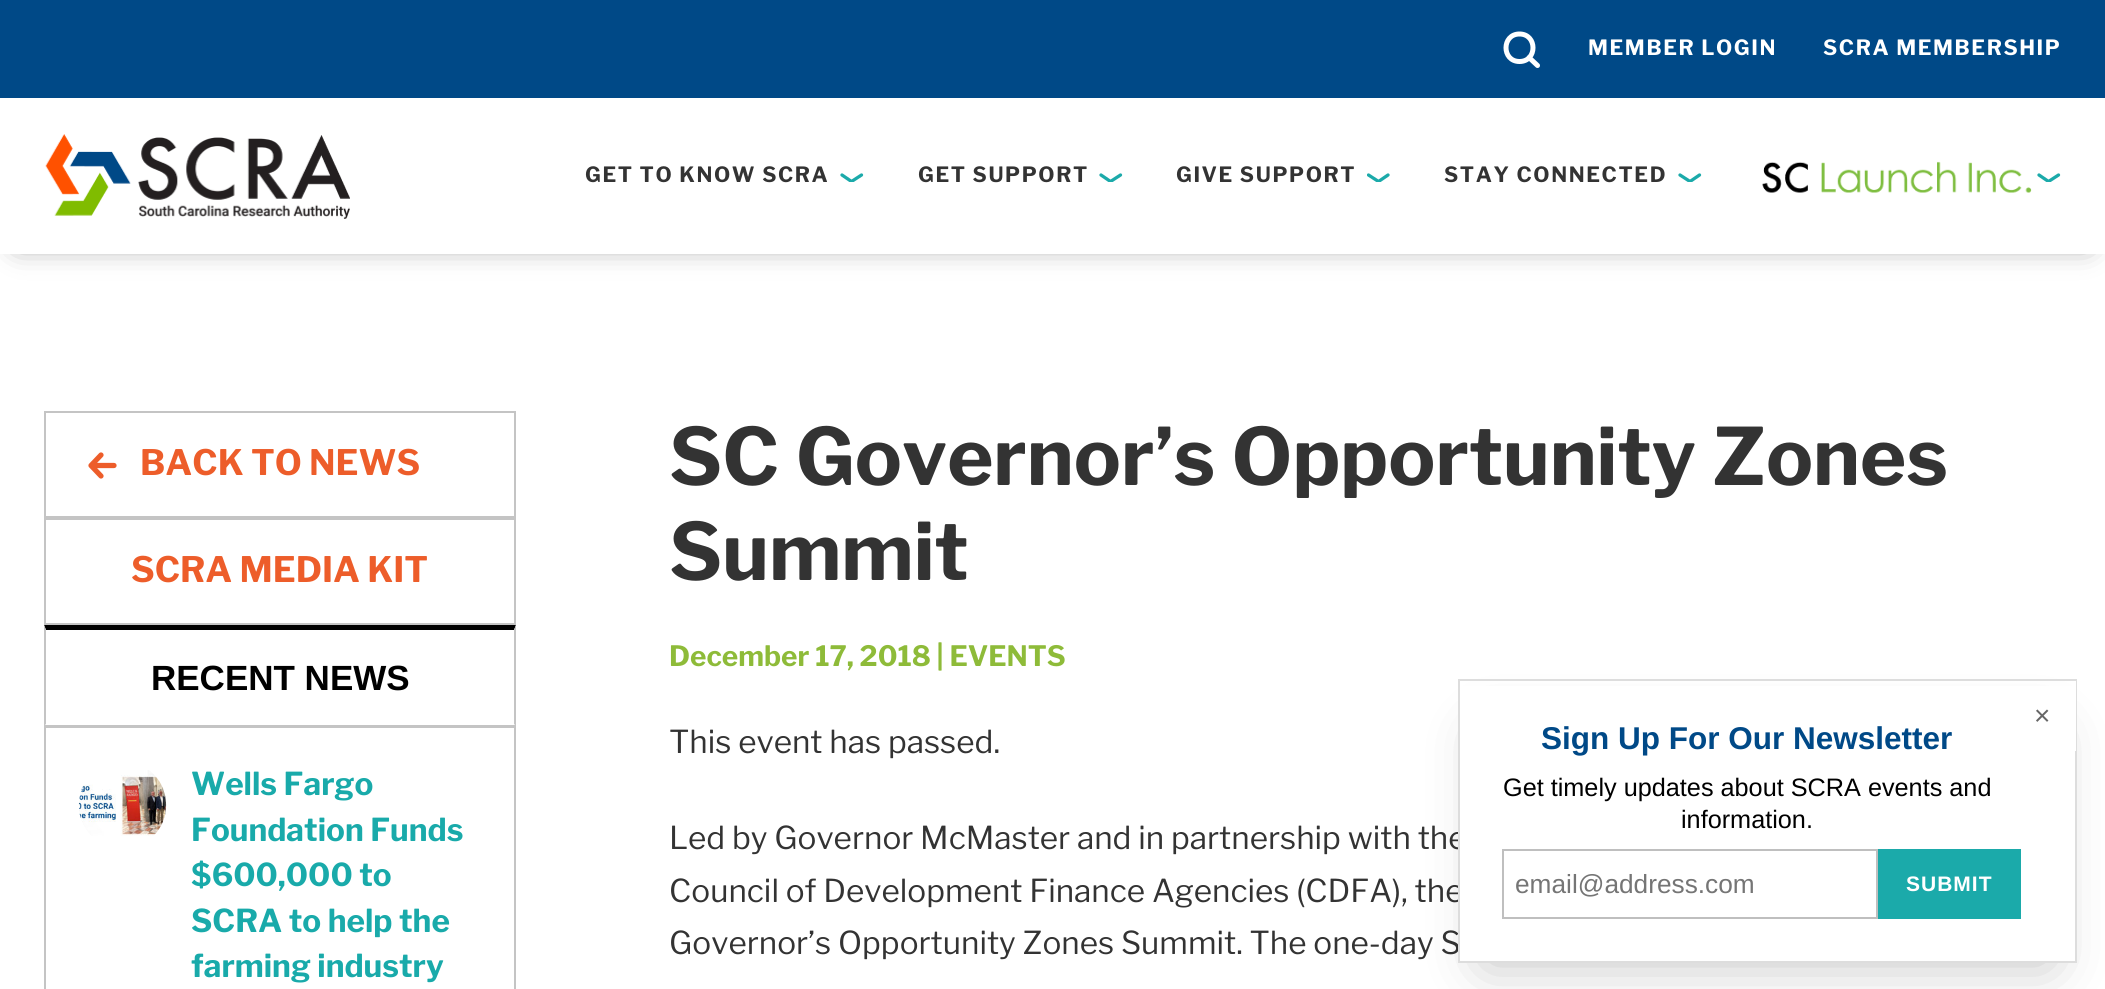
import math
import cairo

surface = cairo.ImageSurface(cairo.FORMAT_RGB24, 2105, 989)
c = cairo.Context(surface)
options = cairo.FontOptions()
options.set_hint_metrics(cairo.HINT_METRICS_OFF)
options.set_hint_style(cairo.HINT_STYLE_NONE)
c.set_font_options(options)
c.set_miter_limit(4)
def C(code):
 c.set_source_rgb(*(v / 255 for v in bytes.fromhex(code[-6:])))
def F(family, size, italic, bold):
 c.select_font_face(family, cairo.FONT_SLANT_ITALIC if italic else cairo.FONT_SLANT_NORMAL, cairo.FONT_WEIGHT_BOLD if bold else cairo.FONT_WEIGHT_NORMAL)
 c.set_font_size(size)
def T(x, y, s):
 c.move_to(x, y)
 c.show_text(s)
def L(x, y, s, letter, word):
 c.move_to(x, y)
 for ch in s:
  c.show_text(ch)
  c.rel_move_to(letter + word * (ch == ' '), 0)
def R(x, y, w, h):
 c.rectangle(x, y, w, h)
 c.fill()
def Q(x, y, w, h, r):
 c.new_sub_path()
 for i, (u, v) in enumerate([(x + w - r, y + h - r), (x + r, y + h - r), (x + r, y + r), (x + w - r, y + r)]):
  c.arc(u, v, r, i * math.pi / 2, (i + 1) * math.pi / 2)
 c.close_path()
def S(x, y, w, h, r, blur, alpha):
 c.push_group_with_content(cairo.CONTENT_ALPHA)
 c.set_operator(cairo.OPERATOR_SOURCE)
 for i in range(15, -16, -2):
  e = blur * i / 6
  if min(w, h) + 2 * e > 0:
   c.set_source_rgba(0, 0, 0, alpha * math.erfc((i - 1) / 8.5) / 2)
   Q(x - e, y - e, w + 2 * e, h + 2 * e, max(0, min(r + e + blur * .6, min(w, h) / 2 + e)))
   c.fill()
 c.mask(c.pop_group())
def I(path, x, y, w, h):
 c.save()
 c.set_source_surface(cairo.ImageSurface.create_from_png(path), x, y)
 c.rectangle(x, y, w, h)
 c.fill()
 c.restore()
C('ffffff')
c.paint()
c.save()
c.set_fill_rule(cairo.FILL_RULE_EVEN_ODD)
c.new_path()
c.move_to(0,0)
c.line_to(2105,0)
c.line_to(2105,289)
c.line_to(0,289)
c.close_path()
c.move_to(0,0)
c.line_to(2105,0)
c.line_to(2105,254)
c.line_to(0,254)
c.close_path()
c.clip()
C('000000')
S(18,25,2070,218,0,15,.5)
c.restore()
C('004987')
R(0,0,2105,98)
c.new_path()
c.move_to(1519.5,34)
c.curve_to(1537.5,34,1537.5,61.5,1519.5,61.5)
c.curve_to(1501.5,61.5,1501.5,34,1519.5,34)
c.close_path()
c.move_to(1529,57.5)
c.line_to(1537.5,65.5)
C('ffffff')
c.set_line_width(5)
c.set_line_cap(cairo.LINE_CAP_ROUND)
c.set_line_join(cairo.LINE_JOIN_ROUND)
c.stroke()
F('Libre Franklin',21,0,1)
L(1588,55,'MEMBER LOGIN',1.6,0)
L(1823,55,'SCRA MEMBERSHIP',1.6,0)
I('1.png',45,134,305,85)
C('333333')
L(585,182,'GET TO KNOW SCRA',1.6,0)
c.save()
c.rectangle(840,173,25,9)
c.clip()
c.new_path()
c.move_to(842,175)
c.line_to(851.5,181.5)
c.line_to(861.5,175)
C('1baaaa')
c.set_line_width(3.3)
c.stroke()
c.restore()
L(918,182,'GET SUPPORT',1.6,0)
c.save()
c.rectangle(1099,173,25,9)
c.clip()
c.new_path()
c.move_to(1101,175)
c.line_to(1110.5,181.5)
c.line_to(1120.5,175)
C('1baaaa')
c.set_line_width(3.3)
c.stroke()
c.restore()
L(1176,182,'GIVE SUPPORT',1.6,0)
c.save()
c.rectangle(1367,173,24,9)
c.clip()
c.new_path()
c.move_to(1368.5,175)
c.line_to(1378.5,181.5)
c.line_to(1388,175)
C('1baaaa')
c.set_line_width(3.3)
c.stroke()
c.restore()
L(1444,182,'STAY CONNECTED',1.6,0)
c.save()
c.rectangle(1678,173,25,9)
c.clip()
c.new_path()
c.move_to(1680,175)
c.line_to(1690,181.5)
c.line_to(1699.5,175)
C('1baaaa')
c.set_line_width(3.3)
c.stroke()
c.restore()
I('2.png',1762,161,270,32)
c.save()
c.rectangle(2037,173,25,9)
c.clip()
c.new_path()
c.move_to(2039,175)
c.line_to(2048.5,181.5)
c.line_to(2058.5,175)
C('1baaaa')
c.set_line_width(3.3)
c.stroke()
c.restore()
c.new_path()
c.move_to(114,465.5)
c.line_to(91.5,465.5)
c.move_to(101,476)
c.line_to(91,465.5)
c.line_to(101,455)
C('ed5d2a')
c.set_line_width(5.2)
c.stroke()
c.rectangle(45,412,470,105)
C('c4c4c4')
c.set_line_width(2)
c.set_line_cap(cairo.LINE_CAP_BUTT)
c.set_line_join(cairo.LINE_JOIN_MITER)
c.stroke()
F('Libre Franklin',35,0,1)
C('ed5d2a')
T(140,475,'BACK TO NEWS')
c.rectangle(45,519,470,105)
C('c4c4c4')
c.stroke()
C('ed5d2a')
T(131,582,'SCRA MEDIA KIT')
C('000000')
c.new_path()
c.move_to(44,625)
c.line_to(516,625)
c.line_to(514,630)
c.line_to(46,630)
c.close_path()
c.fill()
C('c4c4c4')
c.new_path()
c.move_to(516,625)
c.line_to(516,726)
c.line_to(514,724)
c.line_to(514,630)
c.close_path()
c.fill()
R(44,725,472,1)
c.new_path()
c.move_to(44,726)
c.line_to(44,625)
c.line_to(46,630)
c.line_to(46,724)
c.close_path()
c.fill()
F('Liberation Sans',35,0,1)
C('000000')
T(151,690,'RECENT NEWS')
c.rectangle(45,727,470,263)
C('c4c4c4')
c.stroke()
I('3.png',78,770,89,66)
F('Libre Franklin',31.5,0,1)
C('19aaaa')
T(191,795,'Wells Fargo')
T(191,841,'Foundation Funds')
T(191,886,'$600,000 to')
T(191,932,'SCRA to help the')
T(191,977,'farming industry')
F('Libre Franklin',78.75,0,1)
C('333333')
T(669,485,'SC Governor’s Opportunity Zones')
T(669,580,'Summit')
F('Libre Franklin',28,0,1)
C('8ebb39')
T(669,666,'December 17, 2018 | EVENTS')
F('Libre Franklin',31.5,0,0)
C('333333')
T(669,753,'This event has passed.')
T(669,849,'Led by Governor McMaster and in partnership with the')
T(669,902,'Council of Development Finance Agencies (CDFA), the')
T(669,954,'Governor’s Opportunity Zones Summit. The one-day S')
C('000000')
S(1486,735,563,228,0,28,.25)
C('ffffff')
R(1460,686,615,275)
c.rectangle(1459,680,617,282)
C('dddddd')
c.stroke()
C('ffffff')
R(2075,681,1,70)
F('Liberation Sans',28,0,0)
C('666666')
T(2034,725,'×')
F('Liberation Sans',31.5,0,1)
C('004987')
T(1541,749,'Sign Up For Our Newsletter')
F('Liberation Sans',25.25,0,0)
C('000000')
T(1503,796,'Get timely updates about SCRA events and')
T(1681,828,'information.')
c.rectangle(1503,850,374,68)
C('bfbfbf')
c.stroke()
F('Liberation Sans',26.25,0,0)
C('757575')
T(1515,893,'email@address.com')
C('1baaaa')
R(1878,849,143,70)
F('Liberation Sans',21,0,1)
C('ffffff')
L(1906,891,'SUBMIT',1,0)
surface.write_to_png('o.png')
